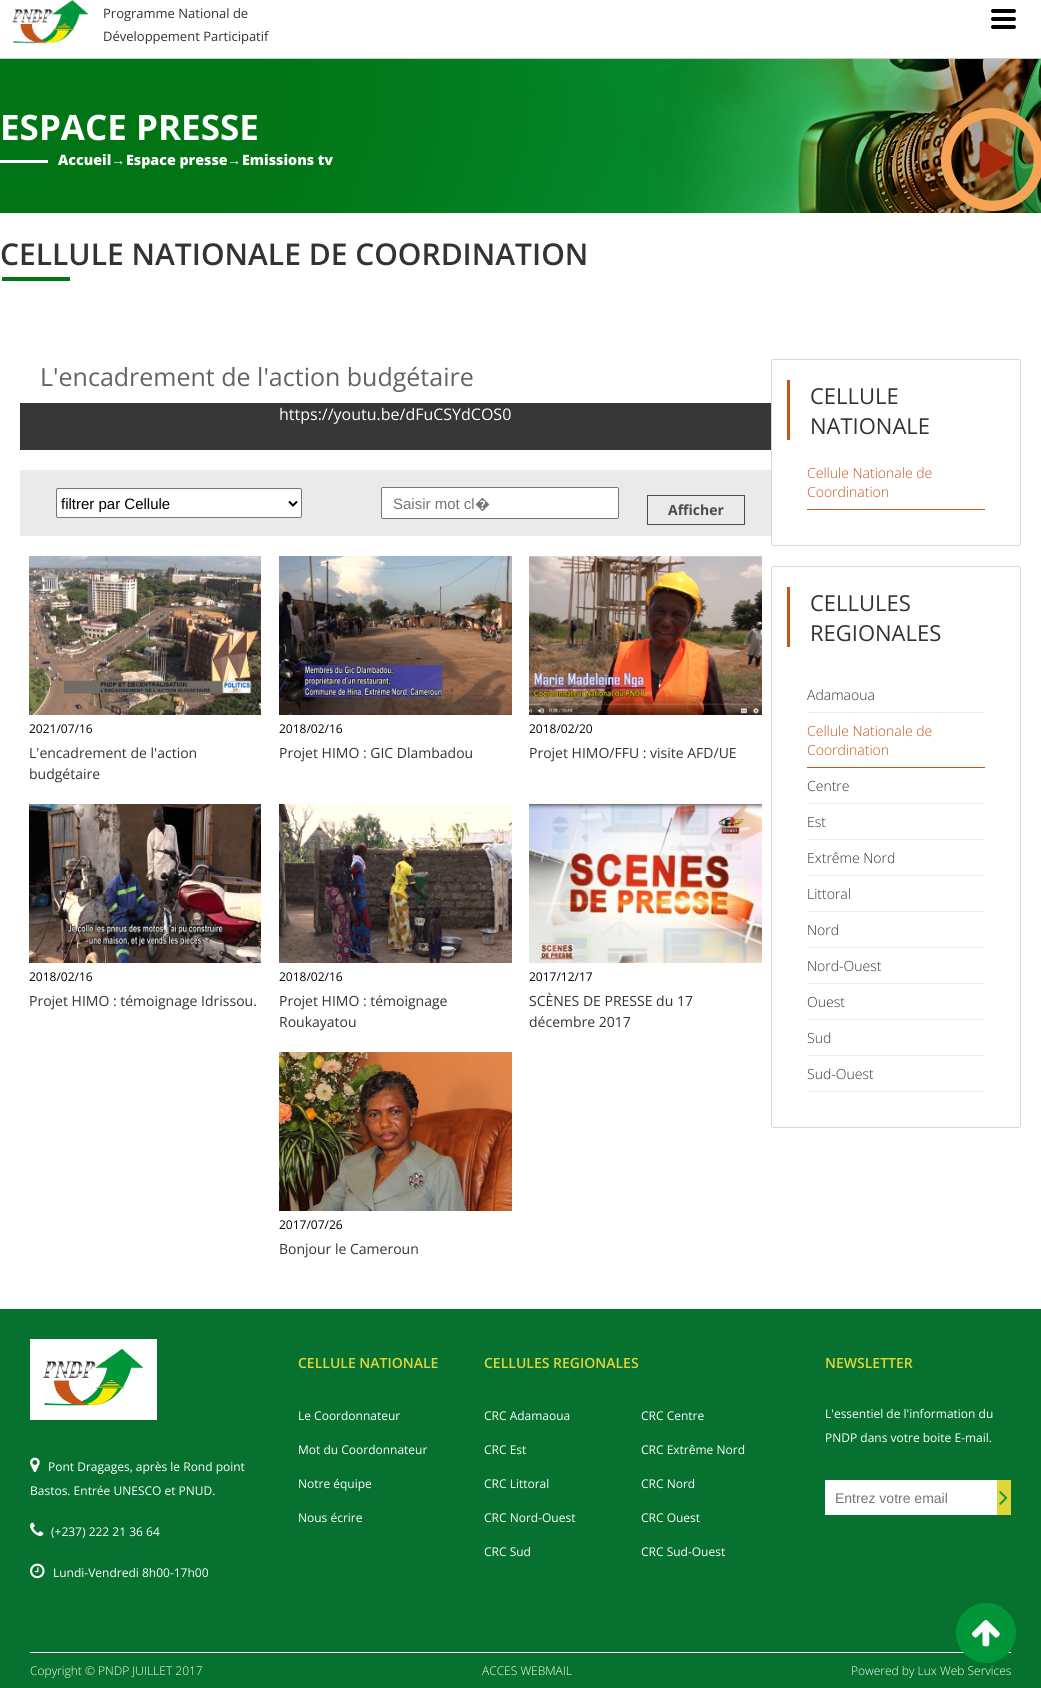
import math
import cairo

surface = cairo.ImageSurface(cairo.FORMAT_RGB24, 1041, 1688)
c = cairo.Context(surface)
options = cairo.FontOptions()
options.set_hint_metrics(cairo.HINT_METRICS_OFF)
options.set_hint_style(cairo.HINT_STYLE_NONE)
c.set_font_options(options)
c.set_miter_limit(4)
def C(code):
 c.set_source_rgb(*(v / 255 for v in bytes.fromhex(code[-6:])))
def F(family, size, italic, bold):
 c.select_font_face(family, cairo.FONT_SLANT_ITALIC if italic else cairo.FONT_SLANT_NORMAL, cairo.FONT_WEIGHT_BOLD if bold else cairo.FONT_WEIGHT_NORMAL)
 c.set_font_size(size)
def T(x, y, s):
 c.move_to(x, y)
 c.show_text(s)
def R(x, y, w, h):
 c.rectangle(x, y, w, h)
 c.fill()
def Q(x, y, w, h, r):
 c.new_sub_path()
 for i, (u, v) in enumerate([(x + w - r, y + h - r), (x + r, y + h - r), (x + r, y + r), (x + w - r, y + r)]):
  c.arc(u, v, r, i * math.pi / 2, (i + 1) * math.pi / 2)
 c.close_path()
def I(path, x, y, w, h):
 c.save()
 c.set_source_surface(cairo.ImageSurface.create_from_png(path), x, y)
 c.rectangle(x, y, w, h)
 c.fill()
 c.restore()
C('ffffff')
c.paint()
C('cccccc')
R(0,58,1041,1)
I('1.png',12,0,77,44)
F('Open Sans',13,0,0)
C('333333')
T(103,18,'Programme National de')
T(103,41,'Développement Participatif')
I('2.png',991,9,25,20)
I('3.png',0,59,1041,154)
F('Open Sans',35,0,1)
C('ffffff')
T(0,140,'ESPACE PRESSE')
R(0,160,48,3)
F('Open Sans ExtraBold',14.25,0,0)
T(58,165,'Accueil')
F('Liberation Sans',14.25,0,1)
T(111,165,'→')
F('Open Sans ExtraBold',14.25,0,0)
T(126,165,'Espace presse')
F('Liberation Sans',14.25,0,1)
T(227,165,'→')
F('Open Sans ExtraBold',14.25,0,0)
T(242,165,'Emissions tv')
F('Open Sans SemiBold',30,0,0)
C('333333')
T(0,265,'CELLULE NATIONALE DE COORDINATION')
C('017415')
R(2,277,68,4)
F('Open Sans',25,0,0)
C('636363')
T(40,386,'L\'encadrement de l\'action budgétaire')
C('373737')
R(20,403,751,47)
F('Open Sans',16,0,0)
C('ffffff')
T(279,420,'https://youtu.be/dFuCSYdCOS0')
C('eaeaea')
R(20,470,751,66)
C('ffffff')
Q(56.5,488.5,245,29,1.5)
c.fill_preserve()
C('767676')
c.set_line_width(1)
c.stroke()
c.new_path()
c.move_to(289,501.5)
c.line_to(293,505.5)
c.line_to(297,501.5)
C('000000')
c.set_line_width(2)
c.stroke()
F('Liberation Sans',15,0,0)
T(61,509,'filtrer par Cellule')
C('ffffff')
Q(381.5,487.5,237,31,1.5)
c.fill_preserve()
C('767676')
c.set_line_width(1)
c.stroke()
C('757575')
T(393,509,'Saisir mot cl')
F('Noto Sans',15,0,0)
T(475,509,'�')
c.rectangle(647.5,495.5,97,29)
C('4b4b4b')
c.stroke()
F('Open Sans',14,0,1)
T(668,515,'Afficher')
I('4.png',29,556,232,159)
F('Open Sans',12,0,0)
C('000000')
T(29,733,'2021/07/16')
F('Open Sans',14,0,0)
C('333333')
T(29,758,'L\'encadrement de l\'action')
T(29,779,'budgétaire')
I('5.png',279,556,233,159)
F('Open Sans',12,0,0)
C('000000')
T(279,733,'2018/02/16')
F('Open Sans',14,0,0)
C('333333')
T(279,758,'Projet HIMO : GIC Dlambadou')
I('6.png',529,556,233,159)
F('Open Sans',12,0,0)
C('000000')
T(529,733,'2018/02/20')
F('Open Sans',14,0,0)
C('333333')
T(529,758,'Projet HIMO/FFU : visite AFD/UE')
I('7.png',29,804,232,159)
F('Open Sans',12,0,0)
C('000000')
T(29,981,'2018/02/16')
F('Open Sans',14,0,0)
C('333333')
T(29,1006,'Projet HIMO : témoignage Idrissou.')
I('8.png',279,804,233,159)
F('Open Sans',12,0,0)
C('000000')
T(279,981,'2018/02/16')
F('Open Sans',14,0,0)
C('333333')
T(279,1006,'Projet HIMO : témoignage')
T(279,1027,'Roukayatou')
I('9.png',529,804,233,159)
F('Open Sans',12,0,0)
C('000000')
T(529,981,'2017/12/17')
F('Open Sans',14,0,0)
C('333333')
T(529,1006,'SCÈNES DE PRESSE du 17')
T(529,1027,'décembre 2017')
I('10.png',279,1052,233,159)
F('Open Sans',12,0,0)
C('000000')
T(279,1229,'2017/07/26')
F('Open Sans',14,0,0)
C('333333')
T(279,1254,'Bonjour le Cameroun')
Q(771.5,359.5,249,186,2.5)
C('d8d8d8')
c.stroke()
C('c25519')
R(787,380,3,60)
F('Open Sans',22,0,0)
C('333333')
T(810,404,'CELLULE')
T(810,434,'NATIONALE')
F('Open Sans Light',14,0,0)
C('c25519')
T(807,478,'Cellule Nationale de')
T(807,497,'Coordination')
R(807,509,178,1)
Q(771.5,566.5,249,561,2.5)
C('d8d8d8')
c.stroke()
C('c25519')
R(787,587,3,60)
F('Open Sans',22,0,0)
C('333333')
T(810,611,'CELLULES')
T(810,641,'REGIONALES')
C('eeeeee')
R(807,712,178,1)
F('Open Sans Light',14,0,0)
C('333333')
T(807,700,'Adamaoua')
C('c25519')
T(807,736,'Cellule Nationale de')
T(807,755,'Coordination')
R(807,767,178,1)
C('eeeeee')
R(807,803,178,1)
C('333333')
T(807,791,'Centre')
C('eeeeee')
R(807,839,178,1)
C('333333')
T(807,827,'Est')
C('eeeeee')
R(807,875,178,1)
C('333333')
T(807,863,'Extrême Nord')
C('eeeeee')
R(807,911,178,1)
C('333333')
T(807,899,'Littoral')
C('eeeeee')
R(807,947,178,1)
C('333333')
T(807,935,'Nord')
C('eeeeee')
R(807,983,178,1)
C('333333')
T(807,971,'Nord-Ouest')
C('eeeeee')
R(807,1019,178,1)
C('333333')
T(807,1007,'Ouest')
C('eeeeee')
R(807,1055,178,1)
C('333333')
T(807,1043,'Sud')
C('eeeeee')
R(807,1091,178,1)
C('333333')
T(807,1079,'Sud-Ouest')
C('077230')
R(0,1309,1041,379)
C('ffffff')
R(30,1652,981,1)
F('Open Sans SemiBold',14,0,0)
C('e1d53a')
T(298,1368,'CELLULE NATIONALE')
F('Open Sans',12,0,0)
C('ffffff')
T(298,1420,'Le Coordonnateur')
T(298,1454,'Mot du Coordonnateur')
T(298,1488,'Notre équipe')
T(298,1522,'Nous écrire')
F('Open Sans SemiBold',14,0,0)
C('e1d53a')
T(484,1368,'CELLULES REGIONALES')
F('Open Sans',12,0,0)
C('ffffff')
T(484,1420,'CRC Adamaoua')
T(641,1420,'CRC Centre')
T(484,1454,'CRC Est')
T(641,1454,'CRC Extrême Nord')
T(484,1488,'CRC Littoral')
T(641,1488,'CRC Nord')
T(484,1522,'CRC Nord-Ouest')
T(641,1522,'CRC Ouest')
T(484,1556,'CRC Sud')
T(641,1556,'CRC Sud-Ouest')
F('Open Sans SemiBold',14,0,0)
C('e1d53a')
T(825,1368,'NEWSLETTER')
F('Open Sans',12,0,0)
C('ffffff')
T(825,1418,'L\'essentiel de l\'information du')
T(825,1442,'PNDP dans votre boite E-mail.')
R(825,1480,172,35)
F('Liberation Sans',14,0,0)
C('757575')
T(835,1503,'Entrez votre email')
C('e1d53a')
R(997,1480,14,35)
I('11.png',999,1491,9,14)
C('ffffff')
R(30,1339,127,81)
I('12.png',43,1349,101,57)
I('13.png',30,1457,10,16)
F('Open Sans',12,0,0)
T(48,1471,'Pont Dragages, après le Rond point')
T(30,1495,'Bastos. Entrée UNESCO et PNUD.')
I('14.png',30,1522,14,14)
T(51,1536,'(+237) 222 21 36 64')
I('15.png',30,1563,15,16)
T(53,1577,'Lundi-Vendredi 8h00-17h00')
F('Open Sans Light',12,0,0)
T(30,1675,'Copyright © PNDP JUILLET 2017')
T(482,1675,'ACCES WEBMAIL')
T(851,1675,'Powered by Lux Web Services')
c.set_source_rgba(0,0.592,0.227,0.98)
c.new_path()
c.arc(986,1633,30,0,2 * math.pi)
c.fill()
I('16.png',972,1620,28,27)
surface.write_to_png('o.png')
